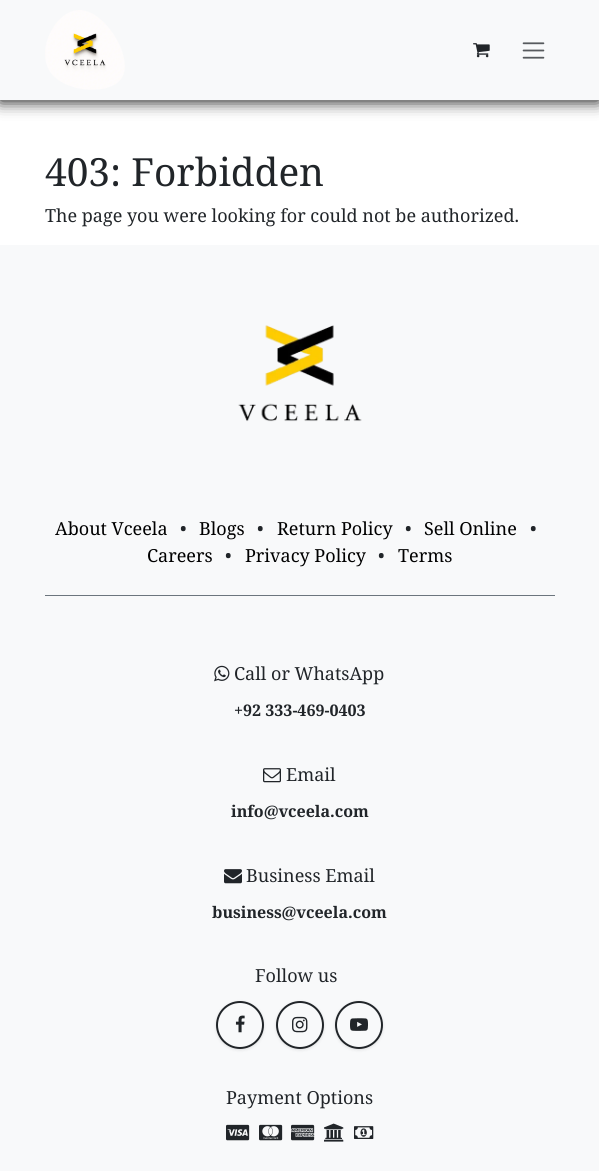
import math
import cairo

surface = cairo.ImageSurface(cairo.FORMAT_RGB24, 599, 1171)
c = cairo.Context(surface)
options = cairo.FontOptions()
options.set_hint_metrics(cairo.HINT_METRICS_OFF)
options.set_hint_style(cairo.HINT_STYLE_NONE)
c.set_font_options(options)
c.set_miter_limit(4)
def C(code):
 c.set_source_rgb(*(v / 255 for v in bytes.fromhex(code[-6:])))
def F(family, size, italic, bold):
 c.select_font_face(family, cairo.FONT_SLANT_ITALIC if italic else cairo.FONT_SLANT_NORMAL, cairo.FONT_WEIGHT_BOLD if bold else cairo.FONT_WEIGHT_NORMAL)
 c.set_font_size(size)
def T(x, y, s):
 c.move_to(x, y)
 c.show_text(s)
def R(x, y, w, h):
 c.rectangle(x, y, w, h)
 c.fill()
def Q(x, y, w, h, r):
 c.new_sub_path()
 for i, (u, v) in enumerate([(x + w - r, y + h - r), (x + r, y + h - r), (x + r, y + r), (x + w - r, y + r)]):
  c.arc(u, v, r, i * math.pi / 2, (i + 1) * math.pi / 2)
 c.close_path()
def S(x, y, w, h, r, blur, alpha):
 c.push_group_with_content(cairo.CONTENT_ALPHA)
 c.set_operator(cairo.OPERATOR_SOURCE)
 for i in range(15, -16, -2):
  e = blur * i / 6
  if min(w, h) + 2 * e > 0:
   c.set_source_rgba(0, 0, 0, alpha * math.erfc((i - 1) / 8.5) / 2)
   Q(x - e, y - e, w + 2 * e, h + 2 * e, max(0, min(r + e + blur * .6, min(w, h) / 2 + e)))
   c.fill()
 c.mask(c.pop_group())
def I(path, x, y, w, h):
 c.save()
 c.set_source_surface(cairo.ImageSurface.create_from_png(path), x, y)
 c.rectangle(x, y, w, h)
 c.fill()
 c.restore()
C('ffffff')
c.paint()
C('050505')
S(0,1,599,100,0,8,1)
C('f8f9fa')
R(0,0,599,100)
I('1.png',45,10,80,80)
I('2.png',473,43,17,15)
I('3.png',522,42,23,17)
F('Noto Serif',38.75,0,0)
C('212529')
T(45,186,'403: Forbidden')
F('Noto Serif',18,0,0)
T(45,222,'The page you were looking for could not be authorized.')
C('f8f9fa')
R(0,245,599,926)
I('4.png',238,325,124,97)
C('000000')
T(55,535,'About Vceela')
C('212529')
T(180,535,'•')
C('000000')
T(199,535,'Blogs')
C('212529')
T(257,535,'•')
C('000000')
T(277,535,'Return Policy')
C('212529')
T(405,535,'•')
C('000000')
T(424,535,'Sell Online')
C('212529')
T(530,535,'•')
C('000000')
T(147,562,'Careers')
C('212529')
T(225,562,'•')
C('000000')
T(245,562,'Privacy Policy')
C('212529')
T(378,562,'•')
C('000000')
T(398,562,'Terms')
C('6c757d')
R(45,595,510,1)
I('5.png',214,665,16,17)
C('212529')
T(234,680,'Call or WhatsApp')
F('Noto Serif',16,0,1)
T(234,716,'+92 333-469-0403')
I('6.png',263,768,18,15)
F('Noto Serif',18,0,0)
T(286,781,'Email')
F('Noto Serif',16,0,1)
T(231,817,'info@vceela.com')
I('7.png',224,869,18,15)
F('Noto Serif',18,0,0)
T(246,882,'Business Email')
F('Noto Serif',16,0,1)
T(212,918,'business@vceela.com')
F('Noto Serif',18,0,0)
T(255,982,'Follow us')
c.save()
c.set_fill_rule(cairo.FILL_RULE_EVEN_ODD)
c.new_path()
c.move_to(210,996)
c.line_to(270,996)
c.line_to(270,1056)
c.line_to(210,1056)
c.close_path()
c.move_to(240,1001)
c.curve_to(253.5,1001,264,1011.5,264,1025)
c.curve_to(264,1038.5,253.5,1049,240,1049)
c.curve_to(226.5,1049,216,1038.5,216,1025)
c.curve_to(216,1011.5,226.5,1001,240,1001)
c.close_path()
c.clip()
C('000000')
S(216,1002,48,48,24,1.5,.1)
c.restore()
c.arc(240,1025,23,0,2 * math.pi)
c.stroke()
I('8.png',235,1015,10,18)
c.save()
c.set_fill_rule(cairo.FILL_RULE_EVEN_ODD)
c.new_path()
c.move_to(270,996)
c.line_to(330,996)
c.line_to(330,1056)
c.line_to(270,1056)
c.close_path()
c.move_to(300,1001)
c.curve_to(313.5,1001,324,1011.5,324,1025)
c.curve_to(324,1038.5,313.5,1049,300,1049)
c.curve_to(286.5,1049,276,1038.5,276,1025)
c.curve_to(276,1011.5,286.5,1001,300,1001)
c.close_path()
c.clip()
C('000000')
S(276,1002,48,48,24,1.5,.1)
c.restore()
c.arc(300,1025,23,0,2 * math.pi)
c.stroke()
I('9.png',292,1016,16,17)
c.save()
c.set_fill_rule(cairo.FILL_RULE_EVEN_ODD)
c.new_path()
c.move_to(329,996)
c.line_to(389,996)
c.line_to(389,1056)
c.line_to(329,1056)
c.close_path()
c.move_to(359,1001)
c.curve_to(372.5,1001,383,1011.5,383,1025)
c.curve_to(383,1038.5,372.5,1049,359,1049)
c.curve_to(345.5,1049,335,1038.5,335,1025)
c.curve_to(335,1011.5,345.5,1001,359,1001)
c.close_path()
c.clip()
C('000000')
S(335,1002,48,48,24,1.5,.1)
c.restore()
c.arc(359,1025,23,0,2 * math.pi)
c.stroke()
I('10.png',350,1018,18,13)
T(226,1104,'Payment Options')
I('11.png',226,1124,24,17)
I('12.png',259,1124,24,17)
I('13.png',291,1124,24,17)
I('14.png',324,1123,20,19)
I('15.png',354,1126,20,13)
surface.write_to_png('o.png')
